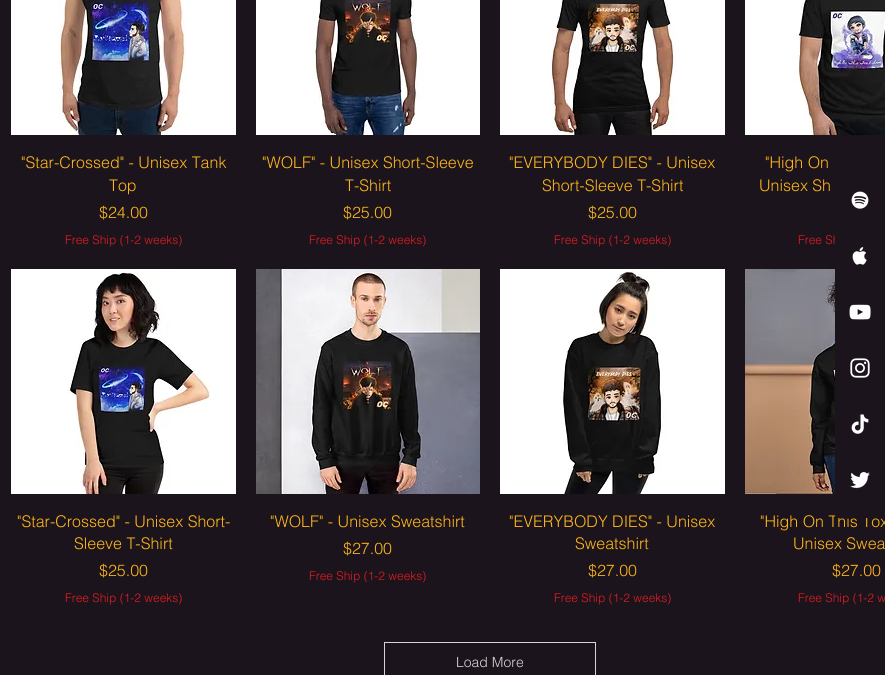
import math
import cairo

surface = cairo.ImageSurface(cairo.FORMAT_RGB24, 885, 675)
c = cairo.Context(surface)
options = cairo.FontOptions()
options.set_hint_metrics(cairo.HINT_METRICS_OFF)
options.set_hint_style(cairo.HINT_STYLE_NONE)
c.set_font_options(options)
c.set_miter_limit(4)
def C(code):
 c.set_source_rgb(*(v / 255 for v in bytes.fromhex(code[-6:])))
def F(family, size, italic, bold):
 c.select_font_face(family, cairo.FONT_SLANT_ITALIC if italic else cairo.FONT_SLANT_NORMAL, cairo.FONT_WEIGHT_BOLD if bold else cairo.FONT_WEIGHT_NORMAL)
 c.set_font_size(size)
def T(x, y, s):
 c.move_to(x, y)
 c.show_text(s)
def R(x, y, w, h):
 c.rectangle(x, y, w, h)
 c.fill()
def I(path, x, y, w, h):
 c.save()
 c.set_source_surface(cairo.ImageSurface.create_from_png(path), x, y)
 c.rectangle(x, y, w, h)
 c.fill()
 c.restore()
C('1c141c')
c.paint()
I('1.png',11,0,225,135)
F('helvetica Light',16,0,0)
C('feb61b')
T(21,168,'"Star-Crossed" - Unisex Tank')
T(109,191,'Top')
T(99,218,'$24.00')
F('helvetica Light',12,0,0)
C('e21c21')
T(65,244,'Free Ship (1-2 weeks)')
I('2.png',256,0,224,135)
F('helvetica Light',16,0,0)
C('feb61b')
T(262,168,'"WOLF" - Unisex Short-Sleeve')
T(345,191,'T-Shirt')
T(343,218,'$25.00')
F('helvetica Light',12,0,0)
C('e21c21')
T(309,244,'Free Ship (1-2 weeks)')
I('3.png',500,0,225,135)
F('helvetica Light',16,0,0)
C('feb61b')
T(509,168,'"EVERYBODY DIES" - Unisex')
T(542,191,'Short-Sleeve T-Shirt')
T(588,218,'$25.00')
F('helvetica Light',12,0,0)
C('e21c21')
T(554,244,'Free Ship (1-2 weeks)')
I('4.png',745,0,140,135)
F('helvetica Light',16,0,0)
C('feb61b')
T(765,168,'"High On')
T(759,191,'Unisex Sh')
F('helvetica Light',12,0,0)
C('e21c21')
T(798,244,'Free Sh')
I('5.png',11,269,225,225)
F('helvetica Light',16,0,0)
C('feb61b')
T(17,527,'"Star-Crossed" - Unisex Short-')
T(74,549,'Sleeve T-Shirt')
T(99,576,'$25.00')
F('helvetica Light',12,0,0)
C('e21c21')
T(65,602,'Free Ship (1-2 weeks)')
I('6.png',256,269,224,225)
F('helvetica Light',16,0,0)
C('feb61b')
T(270,527,'"WOLF" - Unisex Sweatshirt')
T(343,554,'$27.00')
F('helvetica Light',12,0,0)
C('e21c21')
T(309,580,'Free Ship (1-2 weeks)')
I('7.png',500,269,225,225)
F('helvetica Light',16,0,0)
C('feb61b')
T(509,527,'"EVERYBODY DIES" - Unisex')
T(575,549,'Sweatshirt')
T(588,576,'$27.00')
F('helvetica Light',12,0,0)
C('e21c21')
T(554,602,'Free Ship (1-2 weeks)')
I('8.png',745,269,90,225)
F('helvetica Light',16,0,0)
C('feb61b')
T(760,527,'"High On This Tox')
T(793,549,'Unisex Swea')
T(832,576,'$27.00')
F('helvetica Light',12,0,0)
C('e21c21')
T(798,602,'Free Ship (1-2 w')
c.rectangle(384.5,642.5,211,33)
C('d5d5d5')
c.set_line_width(1)
c.stroke()
F('helvetica Light',14,0,0)
T(456,667,'Load More')
I('9.png',851,191,18,18)
C('1c141c')
R(835,237,36,281)
I('10.png',852,247,15,18)
I('11.png',849,304,22,16)
I('12.png',850,358,20,20)
I('13.png',851,414,18,20)
I('14.png',850,472,20,17)
surface.write_to_png('o.png')
